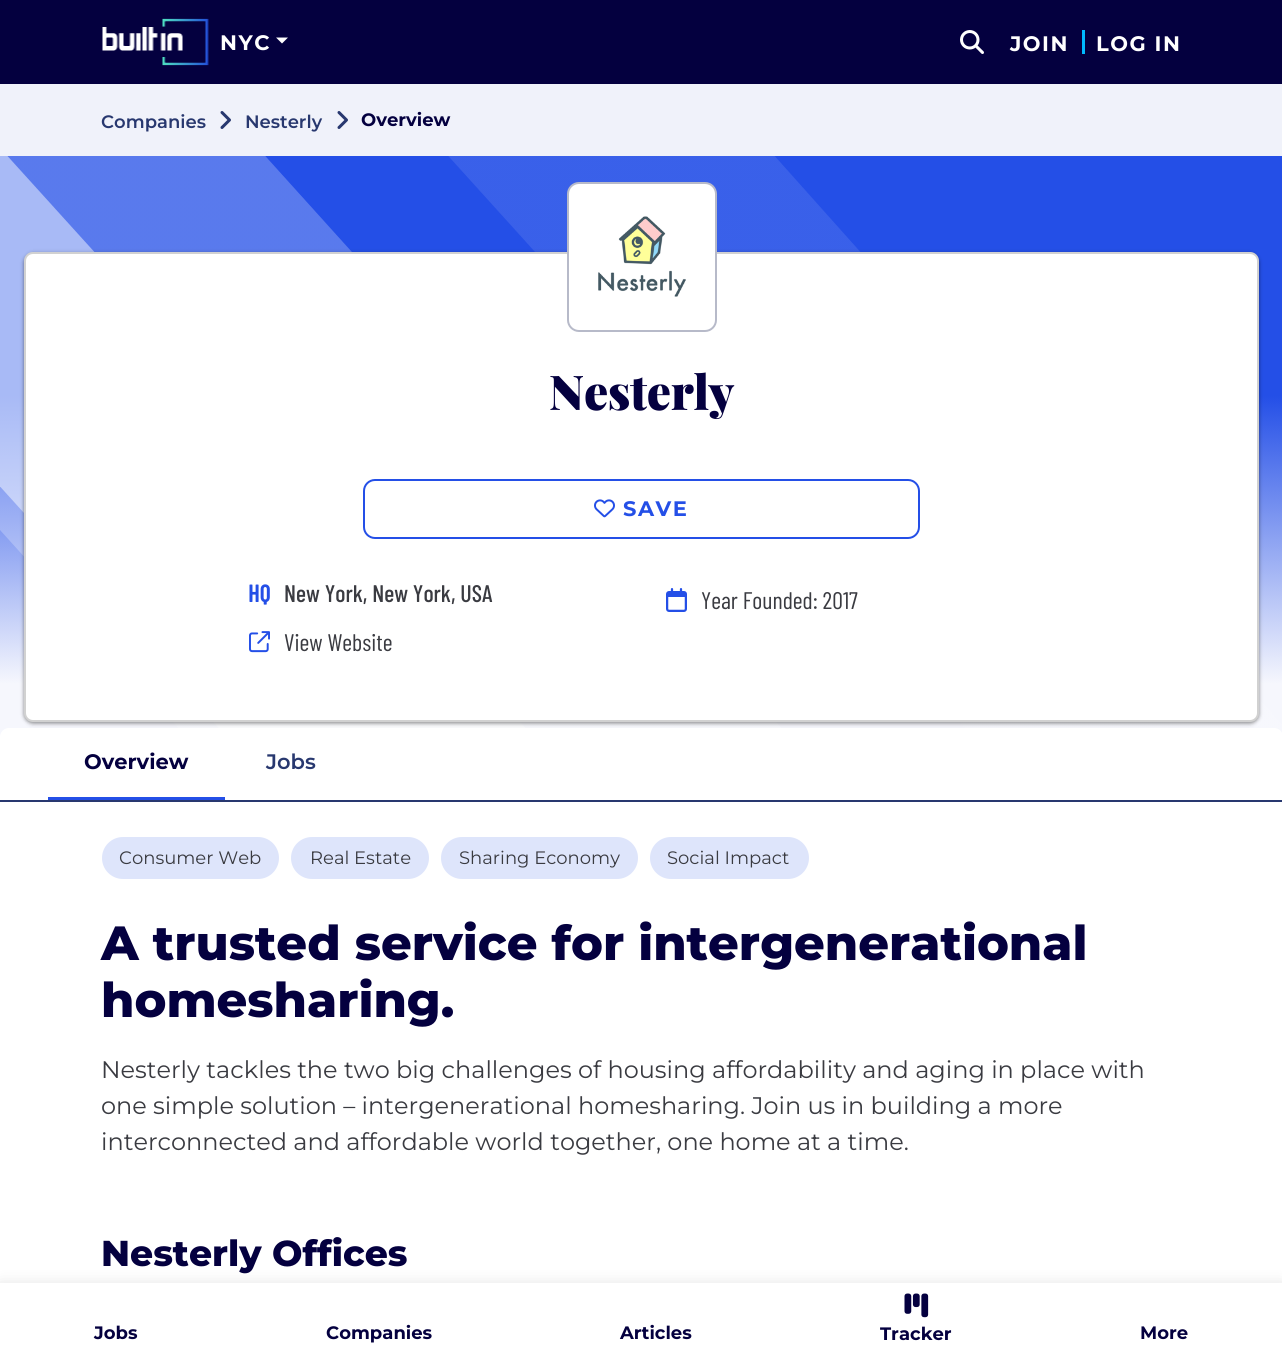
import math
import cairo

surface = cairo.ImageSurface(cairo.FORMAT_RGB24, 1282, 1354)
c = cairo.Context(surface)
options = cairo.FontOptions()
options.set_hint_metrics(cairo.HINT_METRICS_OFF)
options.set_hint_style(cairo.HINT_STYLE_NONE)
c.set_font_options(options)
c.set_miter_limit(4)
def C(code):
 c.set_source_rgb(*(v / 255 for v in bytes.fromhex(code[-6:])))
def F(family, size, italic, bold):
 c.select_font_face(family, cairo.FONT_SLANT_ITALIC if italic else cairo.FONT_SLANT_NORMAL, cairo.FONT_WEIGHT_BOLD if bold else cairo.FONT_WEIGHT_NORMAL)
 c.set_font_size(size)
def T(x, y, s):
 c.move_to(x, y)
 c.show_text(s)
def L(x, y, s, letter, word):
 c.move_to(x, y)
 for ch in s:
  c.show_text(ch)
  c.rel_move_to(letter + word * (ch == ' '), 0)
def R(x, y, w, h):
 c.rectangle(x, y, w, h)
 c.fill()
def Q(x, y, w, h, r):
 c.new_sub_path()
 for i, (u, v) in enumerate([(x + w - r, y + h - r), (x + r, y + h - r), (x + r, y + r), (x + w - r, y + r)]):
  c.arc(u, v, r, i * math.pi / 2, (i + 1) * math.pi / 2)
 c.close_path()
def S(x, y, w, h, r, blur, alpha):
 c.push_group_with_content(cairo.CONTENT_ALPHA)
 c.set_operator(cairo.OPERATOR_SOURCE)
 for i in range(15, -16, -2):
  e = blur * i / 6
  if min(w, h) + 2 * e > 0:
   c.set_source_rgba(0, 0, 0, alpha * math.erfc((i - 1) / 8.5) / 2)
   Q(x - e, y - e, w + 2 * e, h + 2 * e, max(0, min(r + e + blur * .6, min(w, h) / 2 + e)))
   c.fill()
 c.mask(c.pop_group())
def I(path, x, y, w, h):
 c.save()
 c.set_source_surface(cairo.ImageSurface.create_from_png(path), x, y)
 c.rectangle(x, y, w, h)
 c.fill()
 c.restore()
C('ffffff')
c.paint()
C('04003f')
R(0,0,1282,84)
I('1.png',102,18,107,48)
F('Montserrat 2 Thin',21,0,0)
C('ffffff')
L(220,50,'NYC',1.5,0)
c.new_path()
c.move_to(276,37.5)
c.line_to(288,37.5)
c.line_to(282,43.5)
c.close_path()
c.fill()
I('2.png',960,30,24,24)
L(1010,51,'JOIN',1.5,0)
C('00b9fe')
R(1082,30,3,24)
C('ffffff')
L(1096,51,'LOG IN',1.5,0)
I('3.png',0,156,1282,581)
C('f0f2fa')
R(0,84,1282,72)
F('Montserrat Thin',18,0,0)
C('28386f')
T(101,128,'Companies')
I('4.png',220,111,11,18)
T(245,128,'Nesterly')
I('4.png',337,111,11,18)
F('Montserrat 2 Thin',18,0,0)
C('04003f')
T(361,126,'Overview')
C('000000')
S(23,252,1237,473,11,2,.15)
S(24,254,1235,469,9,1.5,.3)
C('ffffff')
Q(24,252,1235,470,9)
c.fill()
Q(25,253,1233,468,8)
c.set_source_rgba(0,0,0,0.18)
c.stroke()
C('ffffff')
Q(568,183,148,148,11)
c.fill_preserve()
C('b7bac9')
c.stroke()
I('5.png',598,216,88,81)
F('Playfair Display Black',48,0,0)
C('04003f')
L(549,410,'Nesterly',-.25,0)
Q(364,480,555,58,11)
C('244fe7')
c.stroke()
I('6.png',594,499,21,19)
F('Montserrat 2 Thin',21,0,0)
L(623,516,'SAVE',1.5,0)
F('Barlow Condensed',24,0,1)
T(248,602,'HQ')
F('Barlow Condensed Medium',24,0,0)
C('3a3b41')
T(284,602,'New York, New York, USA')
I('7.png',666,588,21,24)
F('Barlow Condensed',24,0,0)
T(701,609,'Year Founded: 2017')
I('8.png',249,631,21,22)
T(284,651,'View Website')
C('ffffff')
c.new_path()
c.move_to(9,728)
c.line_to(1274,728)
c.curve_to(1279,728,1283,732,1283,737)
c.line_to(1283,801)
c.line_to(0,801)
c.line_to(0,737)
c.curve_to(0,732,4,728,9,728)
c.close_path()
c.fill()
C('28386f')
R(0,800,1282,2)
C('244fe7')
R(48,797,177,3)
F('Montserrat 2 Thin',21,0,0)
C('04003f')
T(84,769,'Overview')
F('Montserrat Thin',21,0,0)
C('28386f')
T(266,769,'Jobs')
C('dee5fb')
Q(102,837,177,42,21)
c.fill()
F('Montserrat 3 Thin',18,0,0)
C('3a3b41')
T(119,864,'Consumer Web')
C('dee5fb')
Q(291,837,138,42,21)
c.fill()
C('3a3b41')
T(310,864,'Real Estate')
C('dee5fb')
Q(441,837,197,42,21)
c.fill()
C('3a3b41')
T(459,864,'Sharing Economy')
C('dee5fb')
Q(650,837,159,42,21)
c.fill()
C('3a3b41')
T(667,864,'Social Impact')
F('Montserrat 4 Thin',48,0,0)
C('04003f')
T(101,960,'A trusted service for intergenerational')
T(101,1017,'homesharing.')
F('Montserrat 3 Thin',24,0,0)
C('3a3b41')
T(101,1078,'Nesterly tackles the two big challenges of housing affordability and aging in place with')
T(101,1114,'one simple solution – intergenerational homesharing. Join us in building a more')
T(101,1150,'interconnected and affordable world together, one home at a time.')
F('Montserrat 4 Thin',36,0,0)
C('04003f')
T(101,1266,'Nesterly Offices')
C('000000')
S(0,1284,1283,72,0,7.5,.12)
C('ffffff')
R(0,1283,1282,71)
F('Montserrat 2 Thin',18,0,0)
C('04003f')
T(94,1339,'Jobs')
T(326,1339,'Companies')
T(620,1339,'Articles')
I('9.png',904,1293,25,25)
T(880,1340,'Tracker')
T(1140,1339,'More')
surface.write_to_png('o.png')
